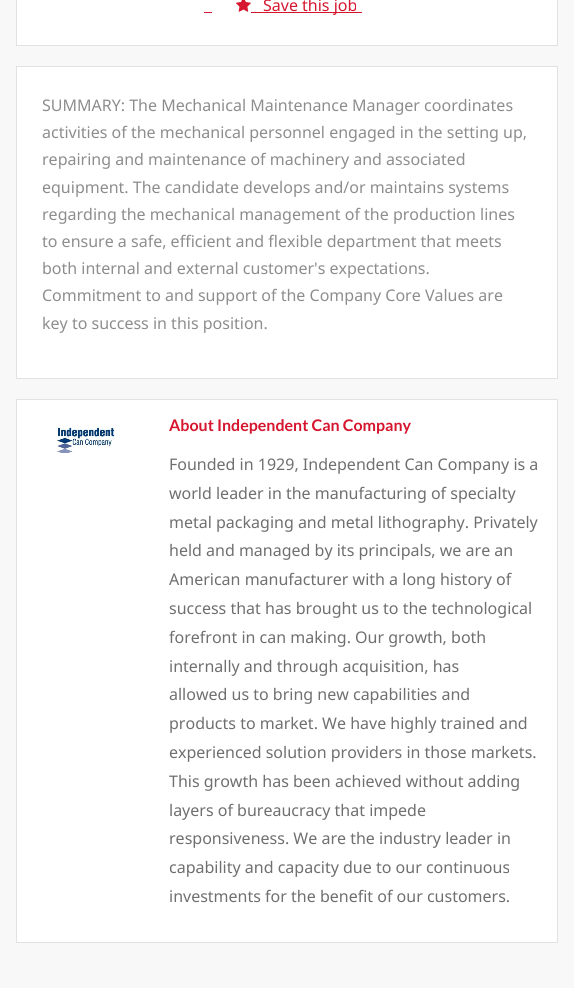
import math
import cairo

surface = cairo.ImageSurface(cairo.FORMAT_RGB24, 574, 988)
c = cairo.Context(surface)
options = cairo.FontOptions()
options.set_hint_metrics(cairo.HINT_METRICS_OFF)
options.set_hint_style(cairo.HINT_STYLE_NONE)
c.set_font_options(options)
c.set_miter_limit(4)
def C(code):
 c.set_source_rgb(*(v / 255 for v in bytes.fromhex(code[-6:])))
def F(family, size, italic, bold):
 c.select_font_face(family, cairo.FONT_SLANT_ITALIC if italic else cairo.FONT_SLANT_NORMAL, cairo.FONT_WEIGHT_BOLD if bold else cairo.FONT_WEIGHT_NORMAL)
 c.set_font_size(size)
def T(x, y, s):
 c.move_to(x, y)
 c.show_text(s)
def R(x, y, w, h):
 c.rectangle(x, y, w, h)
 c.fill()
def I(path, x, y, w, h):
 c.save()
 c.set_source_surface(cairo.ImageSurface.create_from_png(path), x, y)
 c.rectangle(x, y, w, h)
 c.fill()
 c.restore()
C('f8f8f8')
c.paint()
C('ffffff')
c.rectangle(16.5,-.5,541,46)
c.fill_preserve()
C('e2e2e2')
c.set_line_width(1)
c.stroke()
C('d6162e')
R(204,12,8,1)
I('1.png',236,0,15,12)
R(251,12,111,1)
F('Noto Sans',16,0,0)
T(263,11,'Save this job')
C('ffffff')
c.rectangle(16.5,66.5,541,312)
c.fill_preserve()
C('e2e2e2')
c.stroke()
C('8d8d8d')
T(42,111,'SUMMARY: The Mechanical Maintenance Manager coordinates')
T(42,138,'activities of the mechanical personnel engaged in the setting up,')
T(42,165,'repairing and maintenance of machinery and associated')
T(42,193,'equipment. The candidate develops and/or maintains systems')
T(42,220,'regarding the mechanical management of the production lines')
T(42,247,'to ensure a safe, efficient and flexible department that meets')
T(42,274,'both internal and external customer\'s expectations.')
T(42,301,'Commitment to and support of the Company Core Values are')
T(42,329,'key to success in this position.')
C('ffffff')
c.rectangle(16.5,399.5,541,543)
c.fill_preserve()
C('e2e2e2')
c.stroke()
I('2.png',56,426,60,27)
F('Lato',16,0,1)
C('d6162e')
T(169,431,'About Independent Can Company')
F('Noto Sans',16,0,0)
C('6f6f6f')
T(169,470,'Founded in 1929, Independent Can Company is a')
T(169,499,'world leader in the manufacturing of specialty')
T(169,528,'metal packaging and metal lithography. Privately')
T(169,556,'held and managed by its principals, we are an')
T(169,585,'American manufacturer with a long history of')
T(169,614,'success that has brought us to the technological')
T(169,643,'forefront in can making. Our growth, both')
T(169,672,'internally and through acquisition, has')
T(169,700,'allowed us to bring new capabilities and')
T(169,729,'products to market. We have highly trained and')
T(169,758,'experienced solution providers in those markets.')
T(169,787,'This growth has been achieved without adding')
T(169,816,'layers of bureaucracy that impede')
T(169,844,'responsiveness. We are the industry leader in')
T(169,873,'capability and capacity due to our continuous')
T(169,902,'investments for the benefit of our customers.')
surface.write_to_png('o.png')
